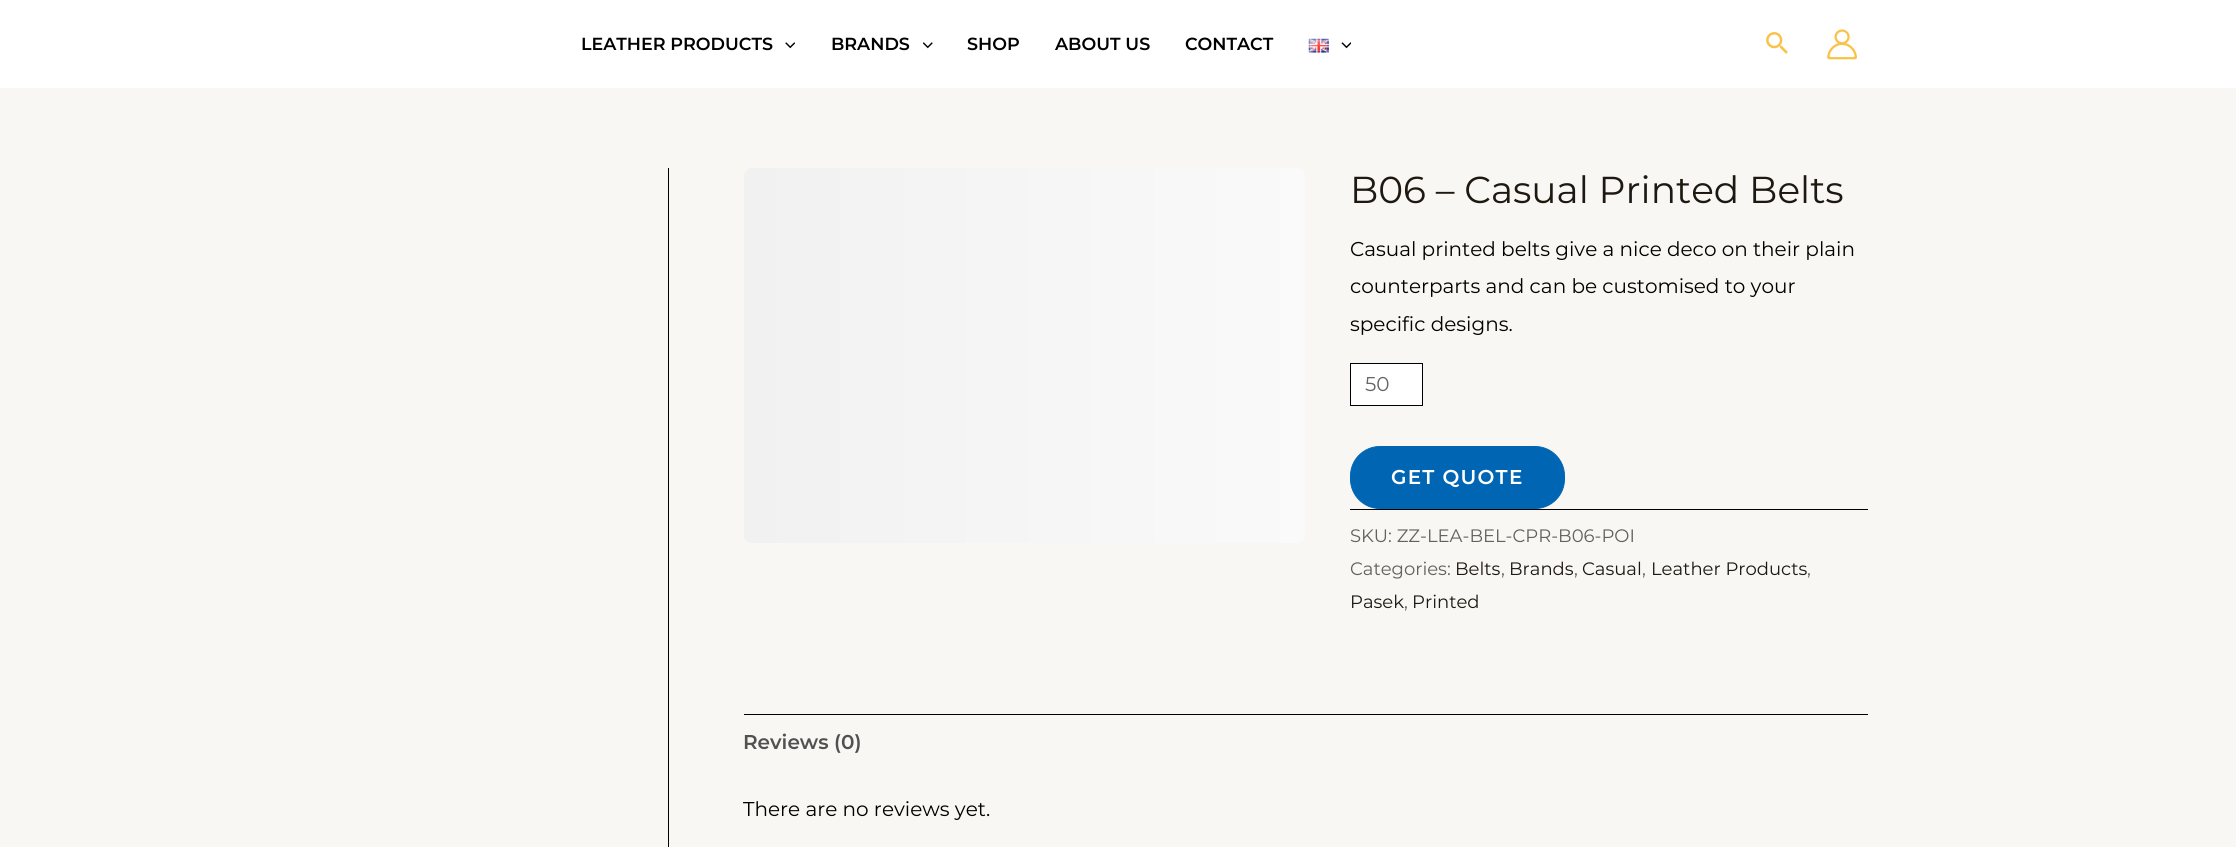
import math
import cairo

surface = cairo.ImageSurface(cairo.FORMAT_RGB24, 2236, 847)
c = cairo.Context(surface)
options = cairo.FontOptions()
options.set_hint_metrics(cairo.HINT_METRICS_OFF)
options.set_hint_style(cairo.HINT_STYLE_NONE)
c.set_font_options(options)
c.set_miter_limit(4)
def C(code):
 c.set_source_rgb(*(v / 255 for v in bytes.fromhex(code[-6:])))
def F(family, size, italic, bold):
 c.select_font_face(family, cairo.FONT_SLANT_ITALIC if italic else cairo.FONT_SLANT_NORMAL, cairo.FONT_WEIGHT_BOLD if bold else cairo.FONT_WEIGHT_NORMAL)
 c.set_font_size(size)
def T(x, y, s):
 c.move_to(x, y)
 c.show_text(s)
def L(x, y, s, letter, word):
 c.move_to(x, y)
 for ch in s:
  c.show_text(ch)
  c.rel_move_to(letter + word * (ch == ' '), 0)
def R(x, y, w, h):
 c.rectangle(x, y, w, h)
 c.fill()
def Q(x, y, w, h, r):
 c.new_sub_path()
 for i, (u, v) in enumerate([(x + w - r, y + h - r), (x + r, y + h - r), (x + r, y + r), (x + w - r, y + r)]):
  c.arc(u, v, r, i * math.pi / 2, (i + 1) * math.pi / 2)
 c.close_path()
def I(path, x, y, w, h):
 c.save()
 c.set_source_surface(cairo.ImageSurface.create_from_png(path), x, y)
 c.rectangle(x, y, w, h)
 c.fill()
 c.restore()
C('f8f7f3')
c.paint()
C('ffffff')
R(0,0,2236,88)
F('Montserrat SemiBold',17.5,0,0)
C('000000')
T(581,50,'LEATHER PRODUCTS')
I('1.png',785,42,10,7)
T(831,50,'BRANDS')
I('2.png',923,42,10,7)
T(967,50,'SHOP')
T(1055,50,'ABOUT US')
T(1185,50,'CONTACT')
I('3.png',1308,38,21,15)
I('4.png',1341,42,10,7)
I('5.png',1766,32,22,22)
I('6.png',1827,29,30,31)
R(668,168,1,679)
gradient = cairo.LinearGradient(744,355,1866,355)
gradient.add_color_stop_rgba(0,0.945,0.945,0.945,1)
gradient.add_color_stop_rgba(.5,0.98,0.98,0.98,1)
gradient.add_color_stop_rgba(1,0.945,0.945,0.945,1)
c.set_source(gradient)
Q(744,168,561,375,8)
c.fill()
F('Montserrat',37.5,0,0)
C('1e1810')
T(1350,203,'B06 – Casual Printed Belts')
F('Montserrat',20,0,0)
C('000000')
T(1350,256,'Casual printed belts give a nice deco on their plain')
T(1350,293,'counterparts and can be customised to your')
T(1350,331,'specific designs.')
C('ffffff')
c.rectangle(1350.5,363.5,72,42)
c.fill_preserve()
C('000000')
c.set_line_width(1)
c.stroke()
C('666666')
T(1365,391,'50')
C('0066b4')
Q(1350.5,446.5,214,62,29.5)
c.fill_preserve()
c.stroke()
F('Montserrat SemiBold',20,0,0)
C('ffffff')
L(1391,484,'GET QUOTE',1.25,0)
C('000000')
R(1350,509,518,1)
F('Montserrat',18,0,0)
C('62615c')
T(1350,542,'SKU: ZZ-LEA-BEL-CPR-B06-POI')
T(1350,575,'Categories:')
C('1e1810')
T(1455,575,'Belts')
C('62615c')
T(1501,575,',')
C('1e1810')
T(1509,575,'Brands')
C('62615c')
T(1574,575,',')
C('1e1810')
T(1582,575,'Casual')
C('62615c')
T(1642,575,',')
C('1e1810')
T(1651,575,'Leather Products')
C('62615c')
T(1807,575,',')
C('1e1810')
T(1350,608,'Pasek')
C('62615c')
T(1404,608,',')
C('1e1810')
T(1412,608,'Printed')
C('000000')
R(744,714,1124,1)
F('Montserrat SemiBold',20,0,0)
C('515151')
T(743,749,'Reviews (0)')
F('Montserrat',20,0,0)
C('000000')
T(743,816,'There are no reviews yet.')
surface.write_to_png('o.png')
